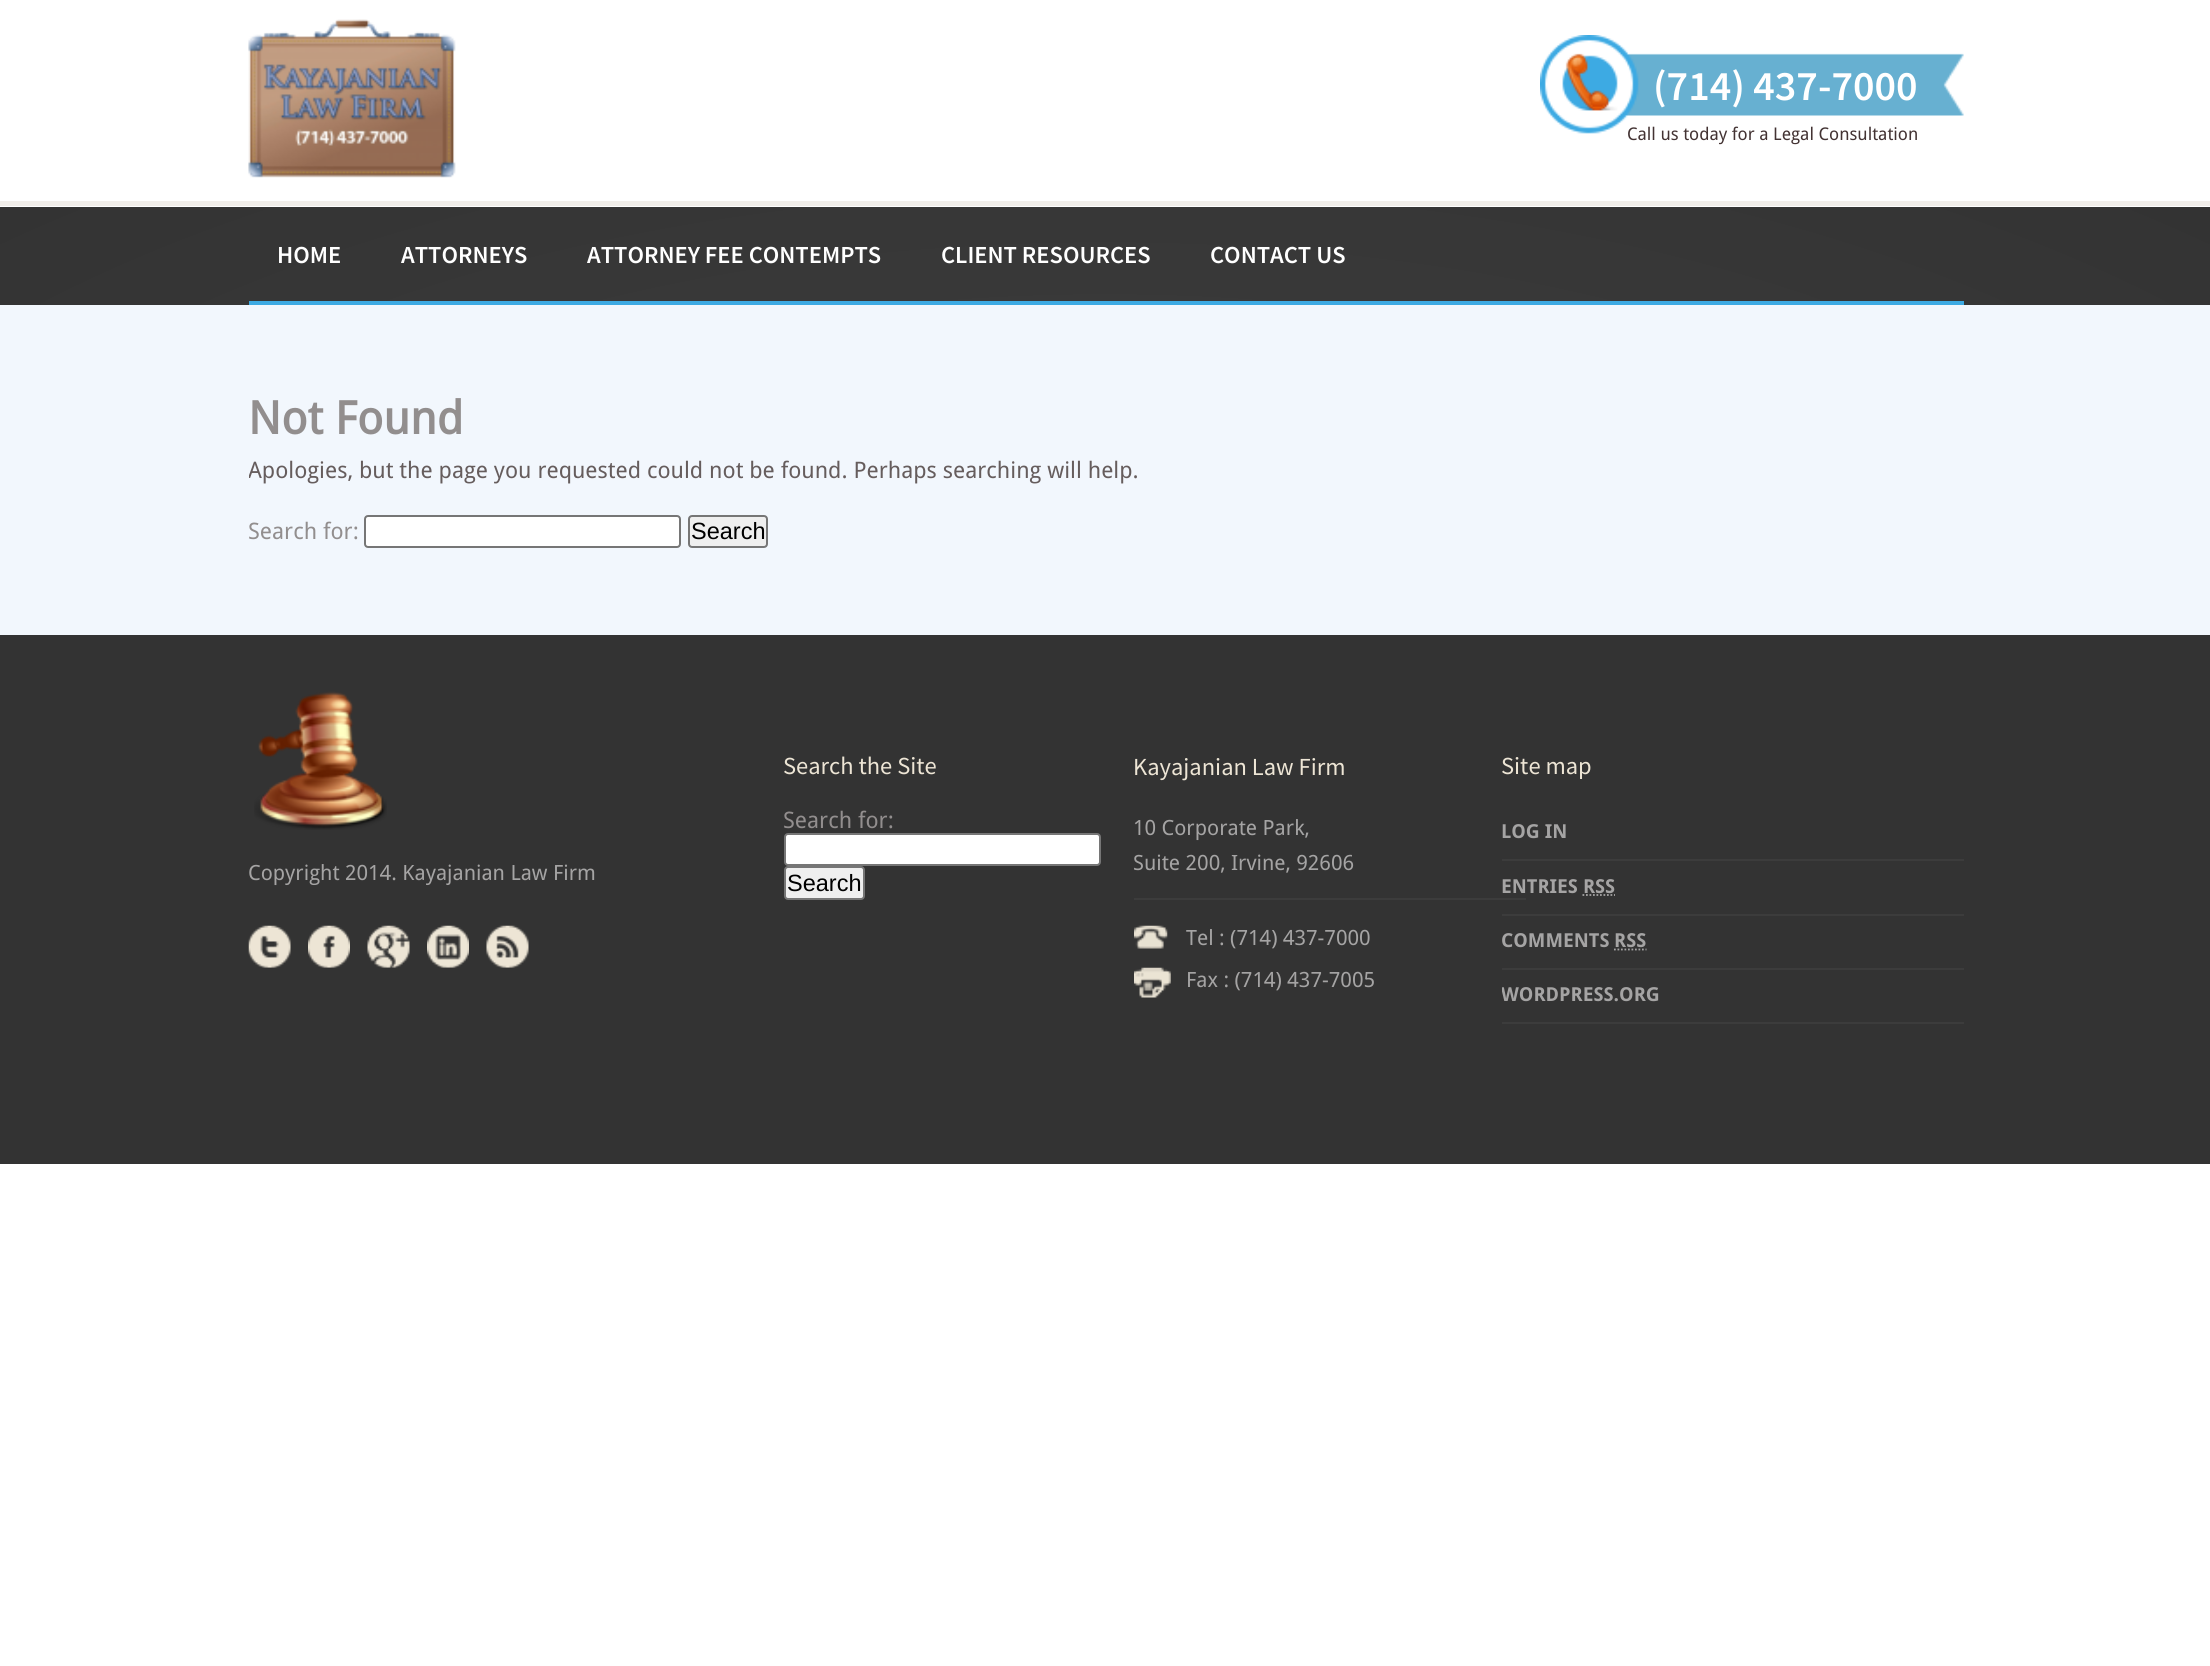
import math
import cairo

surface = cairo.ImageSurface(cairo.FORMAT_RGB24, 2210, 1666)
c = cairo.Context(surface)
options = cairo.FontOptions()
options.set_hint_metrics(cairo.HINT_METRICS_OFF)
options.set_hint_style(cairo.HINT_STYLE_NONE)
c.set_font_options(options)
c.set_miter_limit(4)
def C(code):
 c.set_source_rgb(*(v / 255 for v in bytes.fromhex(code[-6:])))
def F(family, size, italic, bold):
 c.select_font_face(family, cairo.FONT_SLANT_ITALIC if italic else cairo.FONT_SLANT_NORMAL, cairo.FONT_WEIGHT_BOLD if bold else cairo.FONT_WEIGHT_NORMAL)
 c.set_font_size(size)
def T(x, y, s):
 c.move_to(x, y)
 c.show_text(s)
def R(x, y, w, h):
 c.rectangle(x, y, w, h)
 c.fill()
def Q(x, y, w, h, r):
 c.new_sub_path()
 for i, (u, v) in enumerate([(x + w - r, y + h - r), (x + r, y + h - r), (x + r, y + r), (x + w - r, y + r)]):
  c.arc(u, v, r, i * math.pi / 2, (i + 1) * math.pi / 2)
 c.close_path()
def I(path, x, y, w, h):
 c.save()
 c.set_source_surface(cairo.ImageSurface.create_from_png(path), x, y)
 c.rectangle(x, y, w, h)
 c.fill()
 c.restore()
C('ffffff')
c.paint()
C('f1eeea')
R(0,201,2210,5)
I('1.png',248,19,208,159)
I('2.png',1540,35,424,99)
F('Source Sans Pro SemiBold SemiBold',42,0,0)
C('ffffff')
T(1653,100,'(714) 437-7000')
F('Droid Sans',17.5,0,0)
C('433333')
T(1627,140,'Call us today for a Legal Consultation')
gradient = cairo.RadialGradient(0,0,0,0,0,1)
gradient.set_matrix(cairo.Matrix(1 / 1563, 0, 0, 1 / 677, -1 * 1105 / 1563, -1 * 685 / 677))
gradient.add_color_stop_rgba(0,0.251,0.251,0.251,1)
gradient.add_color_stop_rgba(1,0.2,0.2,0.2,1)
c.set_source(gradient)
R(0,207,2210,98)
C('3daae3')
R(249,301,1715,4)
F('Source Sans Pro SemiBold SemiBold',24.5,0,0)
C('ffffff')
T(277,263,'HOME')
T(401,263,'ATTORNEYS')
T(587,263,'ATTORNEY FEE CONTEMPTS')
T(941,263,'CLIENT RESOURCES')
T(1210,263,'CONTACT US')
C('f2f7fd')
R(0,305,2210,330)
F('Droid Sans',45.5,0,1)
C('928e8e')
T(248,434,'Not Found')
c.save()
c.rectangle(249,392,1715,156)
c.clip()
F('Droid Sans',22.75,0,0)
C('665d5d')
T(248,478,'Apologies, but the page you requested could not be found. Perhaps searching will help.')
C('928e8e')
T(248,539,'Search for:')
c.restore()
C('ffffff')
Q(365,516,315,31,3)
c.fill_preserve()
C('767676')
c.stroke()
C('efefef')
Q(689,516,78,31,3)
c.fill_preserve()
C('767676')
c.stroke()
F('Liberation Sans',23.5,0,0)
C('000000')
T(691,539,'Search')
C('333333')
R(0,635,2210,529)
I('3.png',254,691,133,139)
F('Droid Sans',21,0,0)
C('a5a4a4')
T(248,880,'Copyright 2014. Kayajanian Law Firm')
I('4.png',248,925,43,43)
I('5.png',308,925,42,43)
I('6.png',367,925,43,43)
I('7.png',427,925,42,43)
I('8.png',486,925,43,43)
F('Source Sans Pro',24.5,0,0)
C('ede5d5')
T(783,774,'Search the Site')
F('Droid Sans',22.75,0,0)
C('928e8e')
T(783,828,'Search for:')
C('ffffff')
Q(785,834,315,31,3)
c.fill_preserve()
C('767676')
c.stroke()
C('efefef')
Q(785,867,79,32,3)
c.fill_preserve()
C('767676')
c.stroke()
F('Liberation Sans',23.5,0,0)
C('000000')
T(787,891,'Search')
F('Source Sans Pro',24.5,0,0)
C('ede5d5')
T(1133,775,'Kayajanian Law Firm')
F('Droid Sans',21,0,0)
C('a5a4a4')
T(1133,835,'10 Corporate Park,')
T(1133,870,'Suite 200, Irvine, 92606')
C('3c3c3c')
R(1134,898,392,2)
I('9.png',1134,925,34,24)
C('a5a4a4')
T(1186,945,'Tel : (714) 437-7000')
I('10.png',1134,967,37,31)
T(1186,987,'Fax : (714) 437-7005')
F('Source Sans Pro',24.5,0,0)
C('ede5d5')
T(1501,774,'Site map')
C('3c3c3c')
R(1502,859,462,2)
F('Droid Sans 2',19.25,0,1)
C('a5a4a4')
T(1501,838,'LOG IN')
C('3c3c3c')
R(1502,914,462,2)
C('a5a4a4')
T(1501,893,'ENTRIES RSS')
c.new_path()
c.move_to(1582.5,895)
c.line_to(1615,895)
c.set_line_width(1.8)
c.set_dash([1.75,1.75])
c.stroke()
C('3c3c3c')
R(1502,968,462,2)
c.save()
c.rectangle(1502,915,462,53)
c.clip()
C('a5a4a4')
T(1501,947,'COMMENTS')
c.restore()
C('a5a4a4')
T(1614,947,'RSS')
c.new_path()
c.move_to(1614,949.5)
c.line_to(1646.5,949.5)
c.stroke()
C('3c3c3c')
R(1502,1022,462,2)
c.save()
c.rectangle(1502,970,462,52)
c.clip()
C('a5a4a4')
T(1501,1001,'WORDPRESS.ORG')
c.restore()
surface.write_to_png('o.png')
